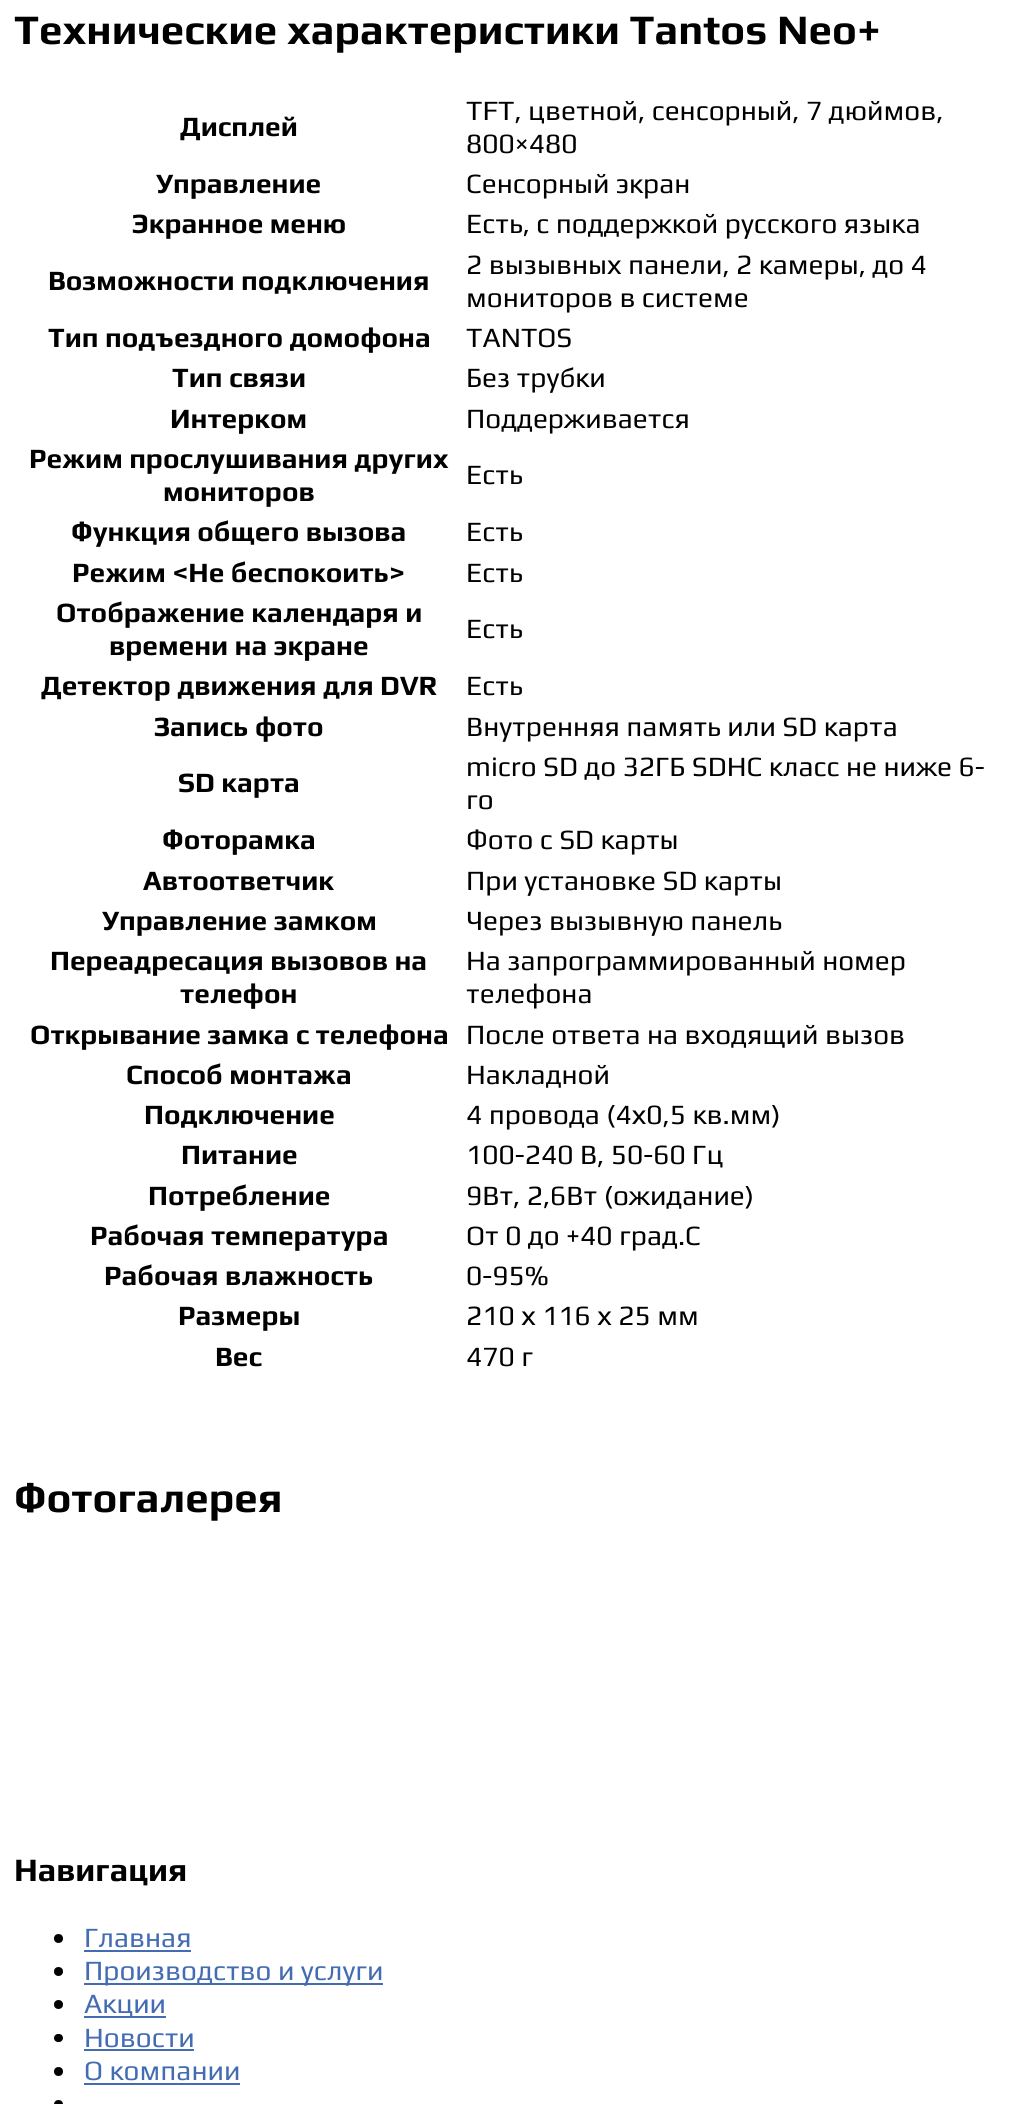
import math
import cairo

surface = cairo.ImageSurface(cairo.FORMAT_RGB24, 1028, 2104)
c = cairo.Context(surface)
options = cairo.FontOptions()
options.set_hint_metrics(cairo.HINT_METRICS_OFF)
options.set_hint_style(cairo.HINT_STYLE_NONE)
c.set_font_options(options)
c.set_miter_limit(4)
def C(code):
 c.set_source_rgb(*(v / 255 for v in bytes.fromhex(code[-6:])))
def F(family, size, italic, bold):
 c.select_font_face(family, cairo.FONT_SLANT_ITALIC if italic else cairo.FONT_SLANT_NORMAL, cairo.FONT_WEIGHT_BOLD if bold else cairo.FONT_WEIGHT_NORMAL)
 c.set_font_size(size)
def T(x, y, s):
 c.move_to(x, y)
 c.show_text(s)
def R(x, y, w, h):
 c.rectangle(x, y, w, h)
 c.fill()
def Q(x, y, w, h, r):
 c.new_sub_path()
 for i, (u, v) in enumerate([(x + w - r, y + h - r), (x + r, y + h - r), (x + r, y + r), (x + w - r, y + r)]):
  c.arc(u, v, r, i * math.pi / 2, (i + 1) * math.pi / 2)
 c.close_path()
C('ffffff')
c.paint()
F('Play',42,0,1)
C('000000')
T(14,44,'Технические характеристики Tantos Neo+')
F('Play',28,0,1)
T(180,136,'Дисплей')
F('Play',28,0,0)
T(466,120,'TFT, цветной, сенсорный, 7 дюймов,')
T(466,153,'800×480')
F('Play',28,0,1)
T(156,193,'Управление')
F('Play',28,0,0)
T(466,193,'Сенсорный экран')
F('Play',28,0,1)
T(132,233,'Экранное меню')
F('Play',28,0,0)
T(466,233,'Есть, с поддержкой русского языка')
F('Play',28,0,1)
T(48,290,'Возможности подключения')
F('Play',28,0,0)
T(466,274,'2 вызывных панели, 2 камеры, до 4')
T(466,307,'мониторов в системе')
F('Play',28,0,1)
T(48,347,'Тип подъездного домофона')
F('Play',28,0,0)
T(466,347,'TANTOS')
F('Play',28,0,1)
T(172,387,'Тип связи')
F('Play',28,0,0)
T(466,387,'Без трубки')
F('Play',28,0,1)
T(170,428,'Интерком')
F('Play',28,0,0)
T(466,428,'Поддерживается')
F('Play',28,0,1)
T(29,468,'Режим прослушивания других')
T(163,501,'мониторов')
F('Play',28,0,0)
T(466,484,'Есть')
F('Play',28,0,1)
T(71,541,'Функция общего вызова')
F('Play',28,0,0)
T(466,541,'Есть')
F('Play',28,0,1)
T(72,582,'Режим <Не беспокоить>')
F('Play',28,0,0)
T(466,582,'Есть')
F('Play',28,0,1)
T(56,622,'Отображение календаря и')
T(109,655,'времени на экране')
F('Play',28,0,0)
T(466,638,'Есть')
F('Play',28,0,1)
T(41,695,'Детектор движения для DVR')
F('Play',28,0,0)
T(466,695,'Есть')
F('Play',28,0,1)
T(154,736,'Запись фото')
F('Play',28,0,0)
T(466,736,'Внутренняя память или SD карта')
F('Play',28,0,1)
T(178,792,'SD карта')
F('Play',28,0,0)
T(466,776,'micro SD до 32ГБ SDHC класс не ниже 6-')
T(466,809,'го')
F('Play',28,0,1)
T(162,849,'Фоторамка')
F('Play',28,0,0)
T(466,849,'Фото с SD карты')
F('Play',28,0,1)
T(143,890,'Автоответчик')
F('Play',28,0,0)
T(466,890,'При установке SD карты')
F('Play',28,0,1)
T(102,930,'Управление замком')
F('Play',28,0,0)
T(466,930,'Через вызывную панель')
F('Play',28,0,1)
T(50,970,'Переадресация вызовов на')
T(180,1003,'телефон')
F('Play',28,0,0)
T(466,970,'На запрограммированный номер')
T(466,1003,'телефона')
F('Play',28,0,1)
T(30,1044,'Открывание замка с телефона')
F('Play',28,0,0)
T(466,1044,'После ответа на входящий вызов')
F('Play',28,0,1)
T(126,1084,'Способ монтажа')
F('Play',28,0,0)
T(466,1084,'Накладной')
F('Play',28,0,1)
T(144,1124,'Подключение')
F('Play',28,0,0)
T(466,1124,'4 провода (4х0,5 кв.мм)')
F('Play',28,0,1)
T(181,1164,'Питание')
F('Play',28,0,0)
T(466,1164,'100-240 В, 50-60 Гц')
F('Play',28,0,1)
T(148,1205,'Потребление')
F('Play',28,0,0)
T(466,1205,'9Вт, 2,6Вт (ожидание)')
F('Play',28,0,1)
T(90,1245,'Рабочая температура')
F('Play',28,0,0)
T(466,1245,'От 0 до +40 град.С')
F('Play',28,0,1)
T(104,1285,'Рабочая влажность')
F('Play',28,0,0)
T(466,1285,'0-95%')
F('Play',28,0,1)
T(178,1325,'Размеры')
F('Play',28,0,0)
T(466,1325,'210 х 116 х 25 мм')
F('Play',28,0,1)
T(215,1366,'Вес')
F('Play',28,0,0)
T(466,1366,'470 г')
F('Play',42,0,1)
T(14,1512,'Фотогалерея')
F('Play',32.75,0,1)
T(14,1881,'Навигация')
c.new_path()
c.arc(58.5,1938.5,4.5,0,2 * math.pi)
c.fill()
F('Play',28,0,0)
C('446cb3')
T(84,1947,'Главная')
R(84,1950,107,2)
C('000000')
c.new_path()
c.arc(58.5,1971.5,4.5,0,2 * math.pi)
c.fill()
C('446cb3')
R(84,1983,299,2)
T(84,1980,'Производство и услуги')
C('000000')
c.new_path()
c.arc(58.5,2004.5,4.5,0,2 * math.pi)
c.fill()
C('446cb3')
R(84,2016,82,2)
T(84,2013,'Акции')
C('000000')
Q(54,2034,9,8,4)
c.fill()
C('446cb3')
T(84,2047,'Новости')
R(84,2049,110,2)
C('000000')
c.new_path()
c.arc(58.5,2071.5,4.5,0,2 * math.pi)
c.fill()
C('446cb3')
T(84,2080,'О компании')
R(84,2083,156,2)
C('000000')
c.new_path()
c.arc(58.5,2104.5,4.5,0,2 * math.pi)
c.fill()
surface.write_to_png('o.png')
